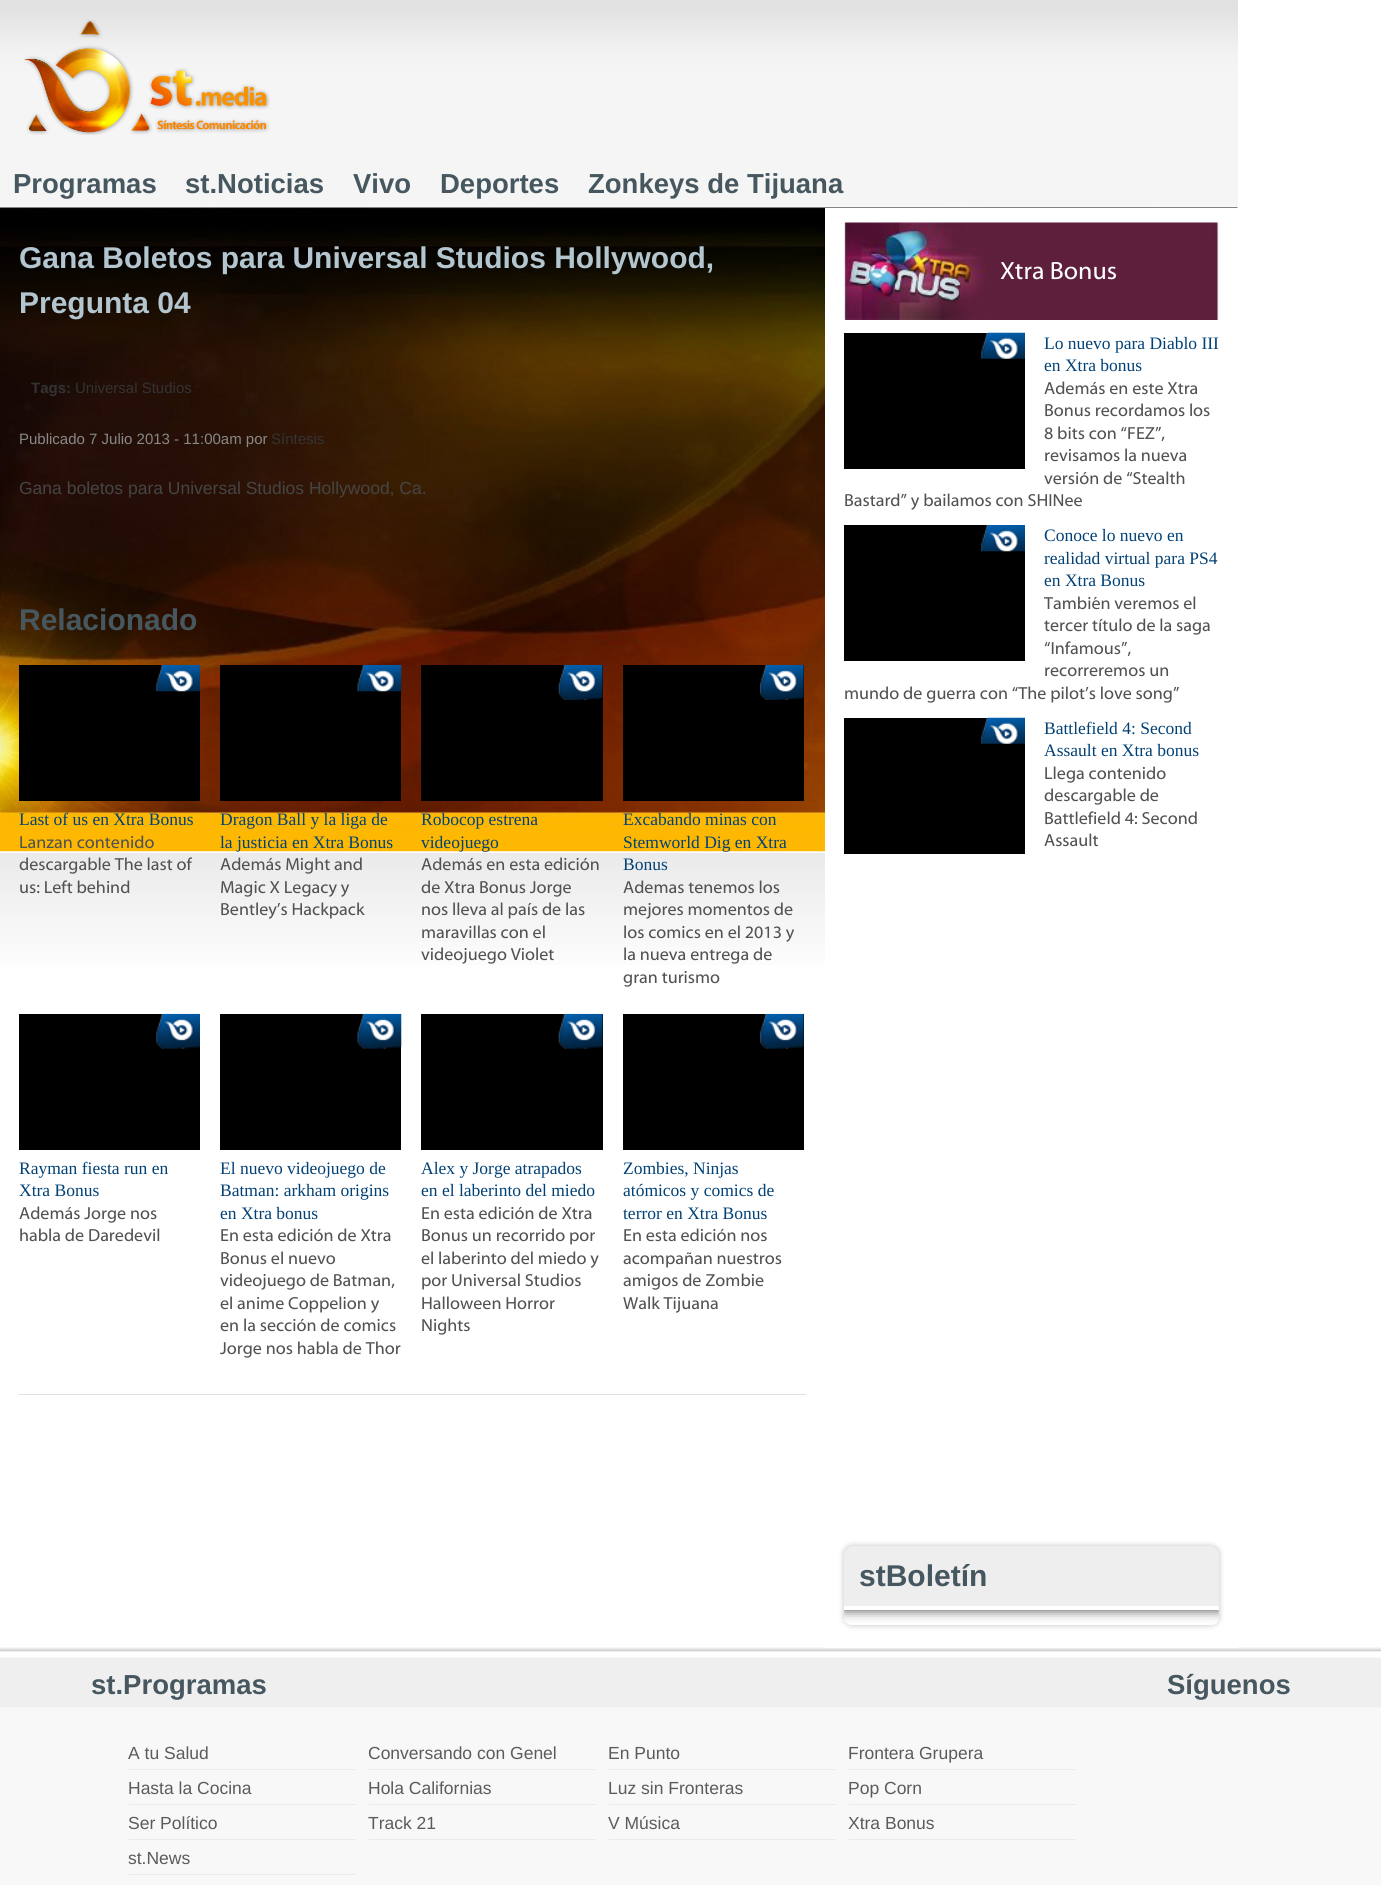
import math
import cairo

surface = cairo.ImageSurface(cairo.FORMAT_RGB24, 1381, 1885)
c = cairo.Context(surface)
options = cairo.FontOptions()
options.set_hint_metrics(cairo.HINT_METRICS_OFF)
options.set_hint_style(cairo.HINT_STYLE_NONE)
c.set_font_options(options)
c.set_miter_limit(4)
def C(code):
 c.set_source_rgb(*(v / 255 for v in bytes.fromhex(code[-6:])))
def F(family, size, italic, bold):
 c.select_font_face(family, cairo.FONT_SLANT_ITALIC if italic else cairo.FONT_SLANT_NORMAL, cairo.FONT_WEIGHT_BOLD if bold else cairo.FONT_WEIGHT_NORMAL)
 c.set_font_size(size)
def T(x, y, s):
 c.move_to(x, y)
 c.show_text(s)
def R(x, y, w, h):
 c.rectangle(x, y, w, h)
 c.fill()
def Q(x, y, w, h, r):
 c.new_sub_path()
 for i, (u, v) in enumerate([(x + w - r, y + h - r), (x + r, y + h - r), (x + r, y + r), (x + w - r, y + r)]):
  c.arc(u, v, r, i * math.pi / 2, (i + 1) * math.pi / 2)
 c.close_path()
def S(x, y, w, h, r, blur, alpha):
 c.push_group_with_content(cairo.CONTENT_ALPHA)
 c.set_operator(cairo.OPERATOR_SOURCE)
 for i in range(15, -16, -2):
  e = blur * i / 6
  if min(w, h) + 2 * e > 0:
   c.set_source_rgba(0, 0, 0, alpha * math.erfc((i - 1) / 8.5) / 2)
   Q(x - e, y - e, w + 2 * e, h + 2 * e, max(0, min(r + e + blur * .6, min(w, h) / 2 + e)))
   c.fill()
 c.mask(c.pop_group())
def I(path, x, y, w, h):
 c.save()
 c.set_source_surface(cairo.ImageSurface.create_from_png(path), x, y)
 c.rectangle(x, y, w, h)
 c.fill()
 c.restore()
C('ffffff')
c.paint()
gradient = cairo.LinearGradient(619,0,619,208)
gradient.add_color_stop_rgba(0,0.882,0.882,0.882,1)
gradient.add_color_stop_rgba(.04,0.886,0.886,0.886,1)
gradient.add_color_stop_rgba(.24,0.945,0.945,0.945,1)
gradient.add_color_stop_rgba(.35,0.961,0.961,0.961,1)
gradient.add_color_stop_rgba(.99,0.961,0.961,0.961,1)
gradient.add_color_stop_rgba(1,1,1,1,1)
c.set_source(gradient)
R(0,0,1238,207)
I('1.png',24,19,246,116)
F('Liberation Sans',27.5,0,1)
C('46575f')
T(13,193,'Programas')
T(185,193,'st.Noticias')
T(353,193,'Vivo')
T(440,193,'Deportes')
T(588,193,'Zonkeys de Tijuana')
I('2.png',0,207,1238,645)
gradient = cairo.LinearGradient(619,853,619,1648)
gradient.add_color_stop_rgba(0,0.918,0.918,0.918,1)
gradient.add_color_stop_rgba(.16,1,1,1,1)
c.set_source(gradient)
R(0,853,825,112)
F('Liberation Sans',30,0,1)
C('b3c5ce')
T(19,268,'Gana Boletos para Universal Studios Hollywood,')
T(19,313,'Pregunta 04')
F('Liberation Sans',15,0,1)
C('333333')
T(31,393,'Tags:')
F('Liberation Sans',15,0,0)
T(75,393,'Universal Studios')
C('888888')
T(19,444,'Publicado 7 Julio 2013 - 11:00am por')
C('333333')
T(271,444,'Síntesis')
F('Liberation Sans',17.5,0,0)
C('454545')
T(19,494,'Gana boletos para Universal Studios Hollywood, Ca.')
C('e0e0e0')
R(19,1394,787,1)
F('Liberation Sans',30,0,1)
C('46575f')
T(19,630,'Relacionado')
C('000000')
R(19,665,181,136)
I('3.png',156,665,44,27)
F('Liberation Serif',17.5,0,0)
C('014176')
T(19,825,'Last of us en Xtra Bonus')
F('Myriad',17.5,0,0)
C('515252')
T(19,848,'Lanzan contenido')
T(19,870,'descargable The last of')
T(19,893,'us: Left behind')
C('000000')
R(220,665,181,136)
I('4.png',357,665,45,27)
F('Liberation Serif',17.5,0,0)
C('014176')
T(220,825,'Dragon Ball y la liga de')
T(220,848,'la justicia en Xtra Bonus')
F('Myriad',17.5,0,0)
C('515252')
T(220,870,'Además Might and')
T(220,893,'Magic X Legacy y')
T(220,915,'Bentley’s Hackpack')
C('000000')
R(421,665,182,136)
I('5.png',558,665,45,35)
F('Liberation Serif',17.5,0,0)
C('014176')
T(421,825,'Robocop estrena')
T(421,848,'videojuego')
F('Myriad',17.5,0,0)
C('515252')
T(421,870,'Además en esta edición')
T(421,893,'de Xtra Bonus Jorge')
T(421,915,'nos lleva al país de las')
T(421,938,'maravillas con el')
T(421,960,'videojuego Violet')
C('000000')
R(623,665,181,136)
I('6.png',760,665,44,35)
F('Liberation Serif',17.5,0,0)
C('014176')
T(623,825,'Excabando minas con')
T(623,848,'Stemworld Dig en Xtra')
T(623,870,'Bonus')
F('Myriad',17.5,0,0)
C('515252')
T(623,893,'Ademas tenemos los')
T(623,915,'mejores momentos de')
T(623,938,'los comics en el 2013 y')
T(623,960,'la nueva entrega de')
T(623,983,'gran turismo')
C('000000')
R(19,1014,181,136)
I('7.png',156,1013,44,36)
F('Liberation Serif',17.5,0,0)
C('014176')
T(19,1174,'Rayman fiesta run en')
T(19,1196,'Xtra Bonus')
F('Myriad',17.5,0,0)
C('515252')
T(19,1219,'Además Jorge nos')
T(19,1241,'habla de Daredevil')
C('000000')
R(220,1014,181,136)
I('8.png',357,1013,45,36)
F('Liberation Serif',17.5,0,0)
C('014176')
T(220,1174,'El nuevo videojuego de')
T(220,1196,'Batman: arkham origins')
T(220,1219,'en Xtra bonus')
F('Myriad',17.5,0,0)
C('515252')
T(220,1241,'En esta edición de Xtra')
T(220,1264,'Bonus el nuevo')
T(220,1286,'videojuego de Batman,')
T(220,1309,'el anime Coppelion y')
T(220,1331,'en la sección de comics')
T(220,1354,'Jorge nos habla de Thor')
C('000000')
R(421,1014,182,136)
I('9.png',558,1013,45,36)
F('Liberation Serif',17.5,0,0)
C('014176')
T(421,1174,'Alex y Jorge atrapados')
T(421,1196,'en el laberinto del miedo')
F('Myriad',17.5,0,0)
C('515252')
T(421,1219,'En esta edición de Xtra')
T(421,1241,'Bonus un recorrido por')
T(421,1264,'el laberinto del miedo y')
T(421,1286,'por Universal Studios')
T(421,1309,'Halloween Horror')
T(421,1331,'Nights')
C('000000')
R(623,1014,181,136)
I('10.png',760,1013,44,36)
F('Liberation Serif',17.5,0,0)
C('014176')
T(623,1174,'Zombies, Ninjas')
T(623,1196,'atómicos y comics de')
T(623,1219,'terror en Xtra Bonus')
F('Myriad',17.5,0,0)
C('515252')
T(623,1241,'En esta edición nos')
T(623,1264,'acompañan nuestros')
T(623,1286,'amigos de Zombie')
T(623,1309,'Walk Tijuana')
C('f8f8f8')
R(0,1707,1381,178)
I('13.png',0,1647,1381,61)
C('ffffff')
R(825,208,413,1440)
I('11.png',843,222,376,98)
F('Myriad',25,0,0)
T(1000,279,'Xtra Bonus')
C('000000')
R(844,333,181,136)
I('12.png',981,332,44,27)
F('Liberation Serif',17.5,0,0)
C('014176')
T(1044,349,'Lo nuevo para Diablo III')
T(1044,371,'en Xtra bonus')
F('Myriad',17.5,0,0)
C('515252')
T(1044,394,'Además en este Xtra')
T(1044,416,'Bonus recordamos los')
T(1044,439,'8 bits con “FEZ”,')
T(1044,461,'revisamos la nueva')
T(1044,484,'versión de “Stealth')
T(844,506,'Bastard” y bailamos con SHINee')
C('000000')
R(844,525,181,136)
I('3.png',981,525,44,27)
F('Liberation Serif',17.5,0,0)
C('014176')
T(1044,541,'Conoce lo nuevo en')
T(1044,564,'realidad virtual para PS4')
T(1044,586,'en Xtra Bonus')
F('Myriad',17.5,0,0)
C('515252')
T(1044,609,'También veremos el')
T(1044,631,'tercer título de la saga')
T(1044,654,'“Infamous”,')
T(1044,676,'recorreremos un')
T(844,699,'mundo de guerra con “The pilot’s love song”')
C('000000')
R(844,718,181,136)
I('12.png',981,717,44,27)
F('Liberation Serif',17.5,0,0)
C('014176')
T(1044,734,'Battlefield 4: Second')
T(1044,756,'Assault en Xtra bonus')
F('Myriad',17.5,0,0)
C('515252')
T(1044,779,'Llega contenido')
T(1044,801,'descargable de')
T(1044,824,'Battlefield 4: Second')
T(1044,846,'Assault')
c.save()
c.set_fill_rule(cairo.FILL_RULE_EVEN_ODD)
c.new_path()
c.move_to(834,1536)
c.line_to(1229,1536)
c.line_to(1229,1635)
c.line_to(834,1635)
c.close_path()
c.move_to(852,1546)
c.line_to(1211,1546)
c.curve_to(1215.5,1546,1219,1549.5,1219,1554)
c.line_to(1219,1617)
c.curve_to(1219,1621.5,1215.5,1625,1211,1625)
c.line_to(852,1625)
c.curve_to(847.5,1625,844,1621.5,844,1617)
c.line_to(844,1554)
c.curve_to(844,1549.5,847.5,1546,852,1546)
c.close_path()
c.clip()
C('000000')
S(844,1546,375,79,8,3,.25)
c.restore()
c.save()
Q(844,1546,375,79,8)
c.clip()
C('404040')
S(844,1546,375,64,0,6,1)
c.restore()
C('eeeeee')
c.new_path()
c.move_to(852,1546)
c.line_to(1211,1546)
c.curve_to(1215.5,1546,1219,1549.5,1219,1554)
c.line_to(1219,1610)
c.line_to(844,1610)
c.line_to(844,1554)
c.curve_to(844,1549.5,847.5,1546,852,1546)
c.close_path()
c.fill()
C('ffffff')
R(844,1606,375,4)
F('Liberation Sans',30,0,1)
C('46575f')
T(859,1586,'stBoletín')
F('Liberation Sans',27.5,0,1)
T(91,1694,'st.Programas')
C('eaeaea')
R(129,1769,227,1)
F('Liberation Sans',17.5,0,0)
C('5b5b5b')
T(128,1759,'A tu Salud')
C('eaeaea')
R(369,1769,227,1)
C('5b5b5b')
T(368,1759,'Conversando con Genel')
C('eaeaea')
R(609,1769,227,1)
C('5b5b5b')
T(608,1759,'En Punto')
C('eaeaea')
R(849,1769,227,1)
C('5b5b5b')
T(848,1759,'Frontera Grupera')
C('eaeaea')
R(129,1804,227,1)
C('5b5b5b')
T(128,1794,'Hasta la Cocina')
C('eaeaea')
R(369,1804,227,1)
C('5b5b5b')
T(368,1794,'Hola Californias')
C('eaeaea')
R(609,1804,227,1)
C('5b5b5b')
T(608,1794,'Luz sin Fronteras')
C('eaeaea')
R(849,1804,227,1)
C('5b5b5b')
T(848,1794,'Pop Corn')
C('eaeaea')
R(129,1839,227,1)
C('5b5b5b')
T(128,1829,'Ser Político')
C('eaeaea')
R(369,1839,227,1)
C('5b5b5b')
T(368,1829,'Track 21')
C('eaeaea')
R(609,1839,227,1)
C('5b5b5b')
T(608,1829,'V Música')
C('eaeaea')
R(849,1839,227,1)
C('5b5b5b')
T(848,1829,'Xtra Bonus')
C('eaeaea')
R(129,1874,227,1)
C('5b5b5b')
T(128,1864,'st.News')
F('Liberation Sans',27.5,0,1)
C('46575f')
T(1167,1694,'Síguenos')
surface.write_to_png('o.png')
